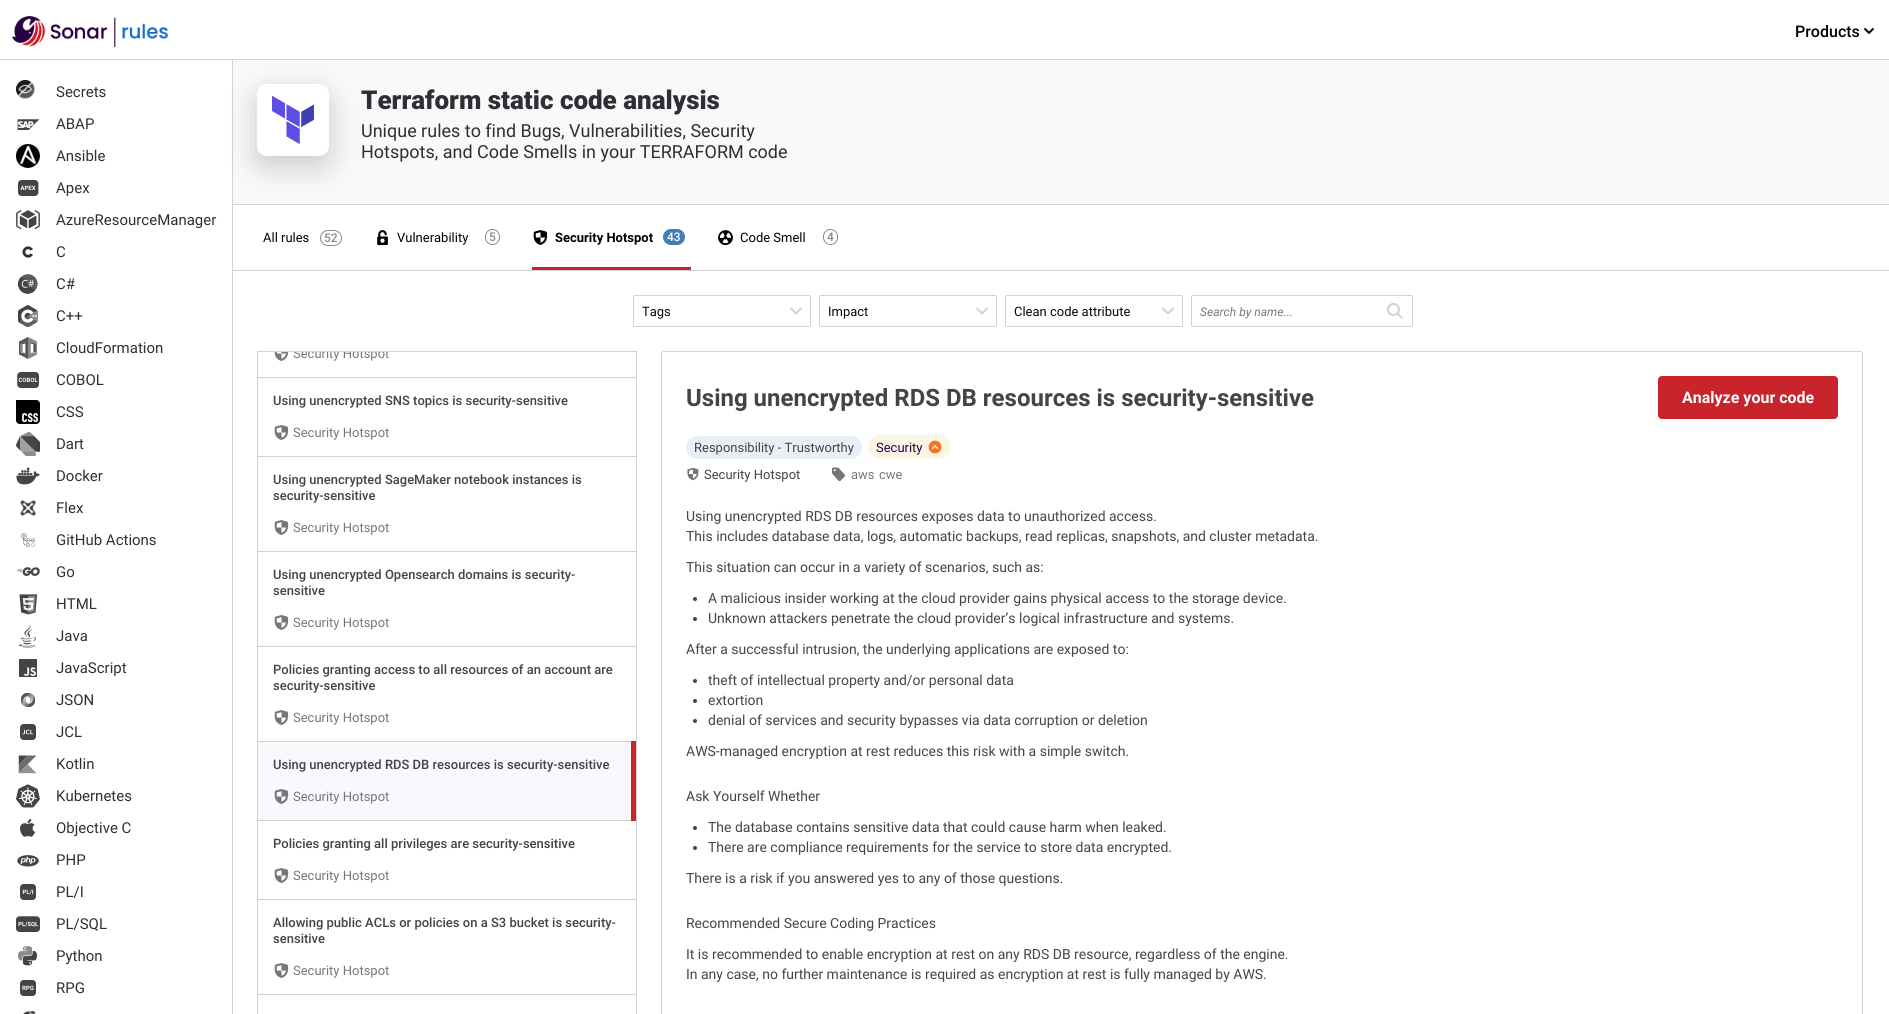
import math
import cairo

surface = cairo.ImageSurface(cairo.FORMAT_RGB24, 1889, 1014)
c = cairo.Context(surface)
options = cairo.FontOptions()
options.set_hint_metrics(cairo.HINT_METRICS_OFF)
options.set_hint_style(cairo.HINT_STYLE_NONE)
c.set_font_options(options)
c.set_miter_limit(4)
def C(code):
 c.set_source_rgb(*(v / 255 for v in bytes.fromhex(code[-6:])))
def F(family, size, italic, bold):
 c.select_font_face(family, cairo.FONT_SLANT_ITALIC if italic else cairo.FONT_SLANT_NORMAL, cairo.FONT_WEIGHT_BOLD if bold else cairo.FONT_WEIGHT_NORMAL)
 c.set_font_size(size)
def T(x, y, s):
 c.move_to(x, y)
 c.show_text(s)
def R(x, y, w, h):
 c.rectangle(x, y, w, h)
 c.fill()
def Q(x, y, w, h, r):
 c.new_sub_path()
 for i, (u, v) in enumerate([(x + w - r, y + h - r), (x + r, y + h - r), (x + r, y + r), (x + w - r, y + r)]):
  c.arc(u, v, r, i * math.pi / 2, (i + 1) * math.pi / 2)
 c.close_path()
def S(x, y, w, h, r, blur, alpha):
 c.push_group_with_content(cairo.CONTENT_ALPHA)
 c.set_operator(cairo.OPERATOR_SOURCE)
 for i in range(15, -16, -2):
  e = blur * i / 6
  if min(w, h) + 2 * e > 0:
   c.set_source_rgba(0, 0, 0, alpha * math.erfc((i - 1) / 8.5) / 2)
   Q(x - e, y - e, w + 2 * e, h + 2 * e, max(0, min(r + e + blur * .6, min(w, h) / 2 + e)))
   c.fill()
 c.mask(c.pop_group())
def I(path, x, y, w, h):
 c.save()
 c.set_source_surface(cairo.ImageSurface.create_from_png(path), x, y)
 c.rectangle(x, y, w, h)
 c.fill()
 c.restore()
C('ffffff')
c.paint()
C('cfd3d7')
R(232,60,1,954)
R(0,59,1889,1)
I('1.png',12,16,156,31)
F('Roboto Medium',16,0,0)
C('000000')
T(1795,37,'Products')
I('2.png',1864,28,10,6)
I('3.png',16,80,19,19)
F('Roboto',15,0,0)
C('2d3032')
T(56,97,'Secrets')
I('4.png',17,119,23,11)
T(56,129,'ABAP')
I('5.png',16,144,24,24)
T(56,161,'Ansible')
I('6.png',18,180,21,16)
T(56,193,'Apex')
I('7.png',16,210,24,19)
T(56,225,'AzureResourceManager')
I('8.png',22,246,11,12)
T(56,257,'C')
I('9.png',18,274,20,20)
T(56,289,'C#')
I('10.png',18,305,20,23)
T(56,321,'C++')
I('11.png',19,337,18,22)
T(56,353,'CloudFormation')
I('12.png',17,372,22,16)
T(56,385,'COBOL')
I('13.png',16,400,24,24)
T(56,417,'CSS')
I('14.png',16,432,24,24)
T(56,449,'Dart')
I('15.png',16,467,24,18)
T(56,481,'Docker')
I('16.png',20,500,16,16)
T(56,513,'Flex')
I('17.png',21,533,14,14)
T(56,545,'GitHub Actions')
I('18.png',16,567,24,9)
T(56,577,'Go')
I('19.png',19,594,19,21)
T(56,609,'HTML')
I('20.png',19,624,17,24)
T(56,641,'Java')
I('21.png',19,659,18,18)
T(56,673,'JavaScript')
I('22.png',21,693,14,14)
T(56,705,'JSON')
I('23.png',20,724,16,16)
T(56,737,'JCL')
I('24.png',18,755,19,19)
T(56,769,'Kotlin')
I('25.png',16,784,24,24)
T(56,801,'Kubernetes')
I('26.png',20,819,15,18)
T(56,833,'Objective C')
I('27.png',17,855,22,12)
T(56,865,'PHP')
I('28.png',20,884,16,16)
T(56,897,'PL/I')
I('29.png',16,916,24,16)
T(56,929,'PL/SQL')
I('30.png',18,946,20,20)
T(56,961,'Python')
I('31.png',20,980,16,16)
T(56,993,'RPG')
I('32.png',23,1011,13,3)
C('f9f9fb')
R(233,60,1656,144)
C('cfd3d7')
R(233,204,1656,1)
C('070706')
S(257,94,72,72,10,15,.2)
C('ffffff')
Q(257,84,72,72,10)
c.fill()
I('33.png',272,96,42,48)
F('Roboto Black',26,0,0)
C('2d3032')
T(361,109,'Terraform static code analysis')
F('Roboto',18,0,0)
T(361,137,'Unique rules to find Bugs, Vulnerabilities, Security')
T(361,158,'Hotspots, and Code Smells in your TERRAFORM code')
C('cfd3d7')
R(233,270,1656,1)
F('Roboto',13,0,0)
C('000000')
T(263,242,'All rules')
Q(320.5,230.5,21,15,7.5)
C('8a8c8f')
c.set_line_width(1)
c.stroke()
F('Roboto Medium',12,0,0)
T(324,242,'52')
I('34.png',377,230,11,16)
F('Roboto',13,0,0)
C('000000')
T(397,242,'Vulnerability')
Q(485.5,229.5,14,15,7)
C('8a8c8f')
c.stroke()
F('Roboto Medium',12,0,0)
T(489,241,'5')
I('35.png',533,230,15,15)
F('Roboto',13,0,1)
C('000000')
T(555,242,'Security Hotspot')
C('3e7fb7')
Q(663.5,229.5,21,15,7.5)
c.fill_preserve()
c.stroke()
F('Roboto Medium',12,0,0)
C('ffffff')
T(667,241,'43')
C('c9232c')
R(532,267,159,3)
I('36.png',718,230,15,15)
F('Roboto',13,0,0)
C('000000')
T(740,242,'Code Smell')
Q(823.5,229.5,14,15,7)
C('8a8c8f')
c.stroke()
F('Roboto Medium',12,0,0)
T(827,241,'4')
Q(633.5,295.5,177,31,1.5)
C('cfd3d7')
c.stroke()
F('Roboto',13,0,0)
C('070706')
T(642,316,'Tags')
I('37.png',790,307,12,8)
Q(819.5,295.5,177,31,1.5)
C('cfd3d7')
c.stroke()
C('070706')
T(828,316,'Impact')
I('37.png',976,307,12,8)
Q(1005.5,295.5,177,31,1.5)
C('cfd3d7')
c.stroke()
C('070706')
T(1014,316,'Clean code attribute')
I('37.png',1162,307,12,8)
Q(1191.5,295.5,221,31,1.5)
C('cfd3d7')
c.stroke()
F('Roboto',12,1,0)
C('777777')
T(1200,316,'Search by name...')
I('38.png',1387,303,16,16)
c.rectangle(257.5,351.5,379,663)
C('cfd3d7')
c.stroke()
R(258,377,378,1)
I('39.png',274,352,15,9)
c.save()
c.rectangle(258,352,378,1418)
c.clip()
F('Roboto',13,0,0)
C('777777')
T(293,358,'Security Hotspot')
c.restore()
R(258,456,378,1)
F('Roboto Medium',13,0,0)
C('434447')
T(273,405,'Using unencrypted SNS topics is security-sensitive')
I('40.png',274,425,15,15)
F('Roboto',13,0,0)
C('777777')
T(293,437,'Security Hotspot')
C('cfd3d7')
R(258,551,378,1)
F('Roboto Medium',13,0,0)
C('434447')
T(273,484,'Using unencrypted SageMaker notebook instances is')
T(273,500,'security-sensitive')
I('40.png',274,520,15,15)
F('Roboto',13,0,0)
C('777777')
T(293,532,'Security Hotspot')
C('cfd3d7')
R(258,646,378,1)
F('Roboto Medium',13,0,0)
C('434447')
T(273,579,'Using unencrypted Opensearch domains is security-')
T(273,595,'sensitive')
I('40.png',274,615,15,15)
F('Roboto',13,0,0)
C('777777')
T(293,627,'Security Hotspot')
C('cfd3d7')
R(258,741,378,1)
F('Roboto Medium',13,0,0)
C('434447')
T(273,674,'Policies granting access to all resources of an account are')
T(273,690,'security-sensitive')
I('40.png',274,710,15,15)
F('Roboto',13,0,0)
C('777777')
T(293,722,'Security Hotspot')
C('f7f9fc')
R(258,742,373,78)
C('cfd3d7')
R(258,820,378,1)
F('Roboto Medium',13,0,0)
C('434447')
T(273,769,'Using unencrypted RDS DB resources is security-sensitive')
I('41.png',274,789,15,15)
F('Roboto',13,0,0)
C('777777')
T(293,801,'Security Hotspot')
C('c9232c')
R(631,741,5,80)
C('cfd3d7')
R(258,899,378,1)
F('Roboto Medium',13,0,0)
C('434447')
T(273,848,'Policies granting all privileges are security-sensitive')
I('40.png',274,868,15,15)
F('Roboto',13,0,0)
C('777777')
T(293,880,'Security Hotspot')
C('cfd3d7')
R(258,994,378,1)
F('Roboto Medium',13,0,0)
C('434447')
T(273,927,'Allowing public ACLs or policies on a S3 bucket is security-')
T(273,943,'sensitive')
I('40.png',274,963,15,15)
F('Roboto',13,0,0)
C('777777')
T(293,975,'Security Hotspot')
Q(661.5,351.5,1201,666,2.5)
C('cfd3d7')
c.stroke()
F('Roboto',24,0,1)
C('434447')
T(686,406,'Using unencrypted RDS DB resources is security-sensitive')
C('c9232c')
Q(1658,376,180,43,4)
c.fill()
F('Roboto',16,0,1)
C('ffffff')
T(1682,403,'Analyze your code')
C('e8eff7')
Q(686,436,176,23,11.5)
c.fill()
F('Roboto',13,0,0)
C('434447')
T(694,452,'Responsibility - Trustworthy')
C('fbf5e6')
Q(868,435,83,24,12)
c.fill()
C('290042')
T(876,452,'Security')
I('42.png',928,440,14,14)
I('43.png',687,467,12,14)
C('434447')
T(704,479,'Security Hotspot')
I('44.png',832,467,14,14)
C('777777')
T(851,479,'aws')
T(879,479,'cwe')
F('Roboto',14,0,0)
C('434447')
T(686,521,'Using unencrypted RDS DB resources exposes data to unauthorized access.')
T(686,541,'This includes database data, logs, automatic backups, read replicas, snapshots, and cluster metadata.')
T(686,572,'This situation can occur in a variety of scenarios, such as:')
C('444444')
c.new_path()
c.arc(695,599,2,0,2 * math.pi)
c.fill()
C('434447')
T(708,603,'A malicious insider working at the cloud provider gains physical access to the storage device.')
C('444444')
c.new_path()
c.arc(695,619,2,0,2 * math.pi)
c.fill()
C('434447')
T(708,623,'Unknown attackers penetrate the cloud provider’s logical infrastructure and systems.')
T(686,654,'After a successful intrusion, the underlying applications are exposed to:')
C('444444')
c.new_path()
c.arc(695,681,2,0,2 * math.pi)
c.fill()
C('434447')
T(708,685,'theft of intellectual property and/or personal data')
C('444444')
c.new_path()
c.arc(695,701,2,0,2 * math.pi)
c.fill()
C('434447')
T(708,705,'extortion')
C('444444')
c.new_path()
c.arc(695,721,2,0,2 * math.pi)
c.fill()
C('434447')
T(708,725,'denial of services and security bypasses via data corruption or deletion')
T(686,756,'AWS-managed encryption at rest reduces this risk with a simple switch.')
T(686,801,'Ask Yourself Whether')
C('444444')
c.new_path()
c.arc(695,828,2,0,2 * math.pi)
c.fill()
C('434447')
T(708,832,'The database contains sensitive data that could cause harm when leaked.')
C('444444')
c.new_path()
c.arc(695,848,2,0,2 * math.pi)
c.fill()
C('434447')
T(708,852,'There are compliance requirements for the service to store data encrypted.')
T(686,883,'There is a risk if you answered yes to any of those questions.')
T(686,928,'Recommended Secure Coding Practices')
T(686,959,'It is recommended to enable encryption at rest on any RDS DB resource, regardless of the engine.')
T(686,979,'In any case, no further maintenance is required as encryption at rest is fully managed by AWS.')
surface.write_to_png('o.png')
